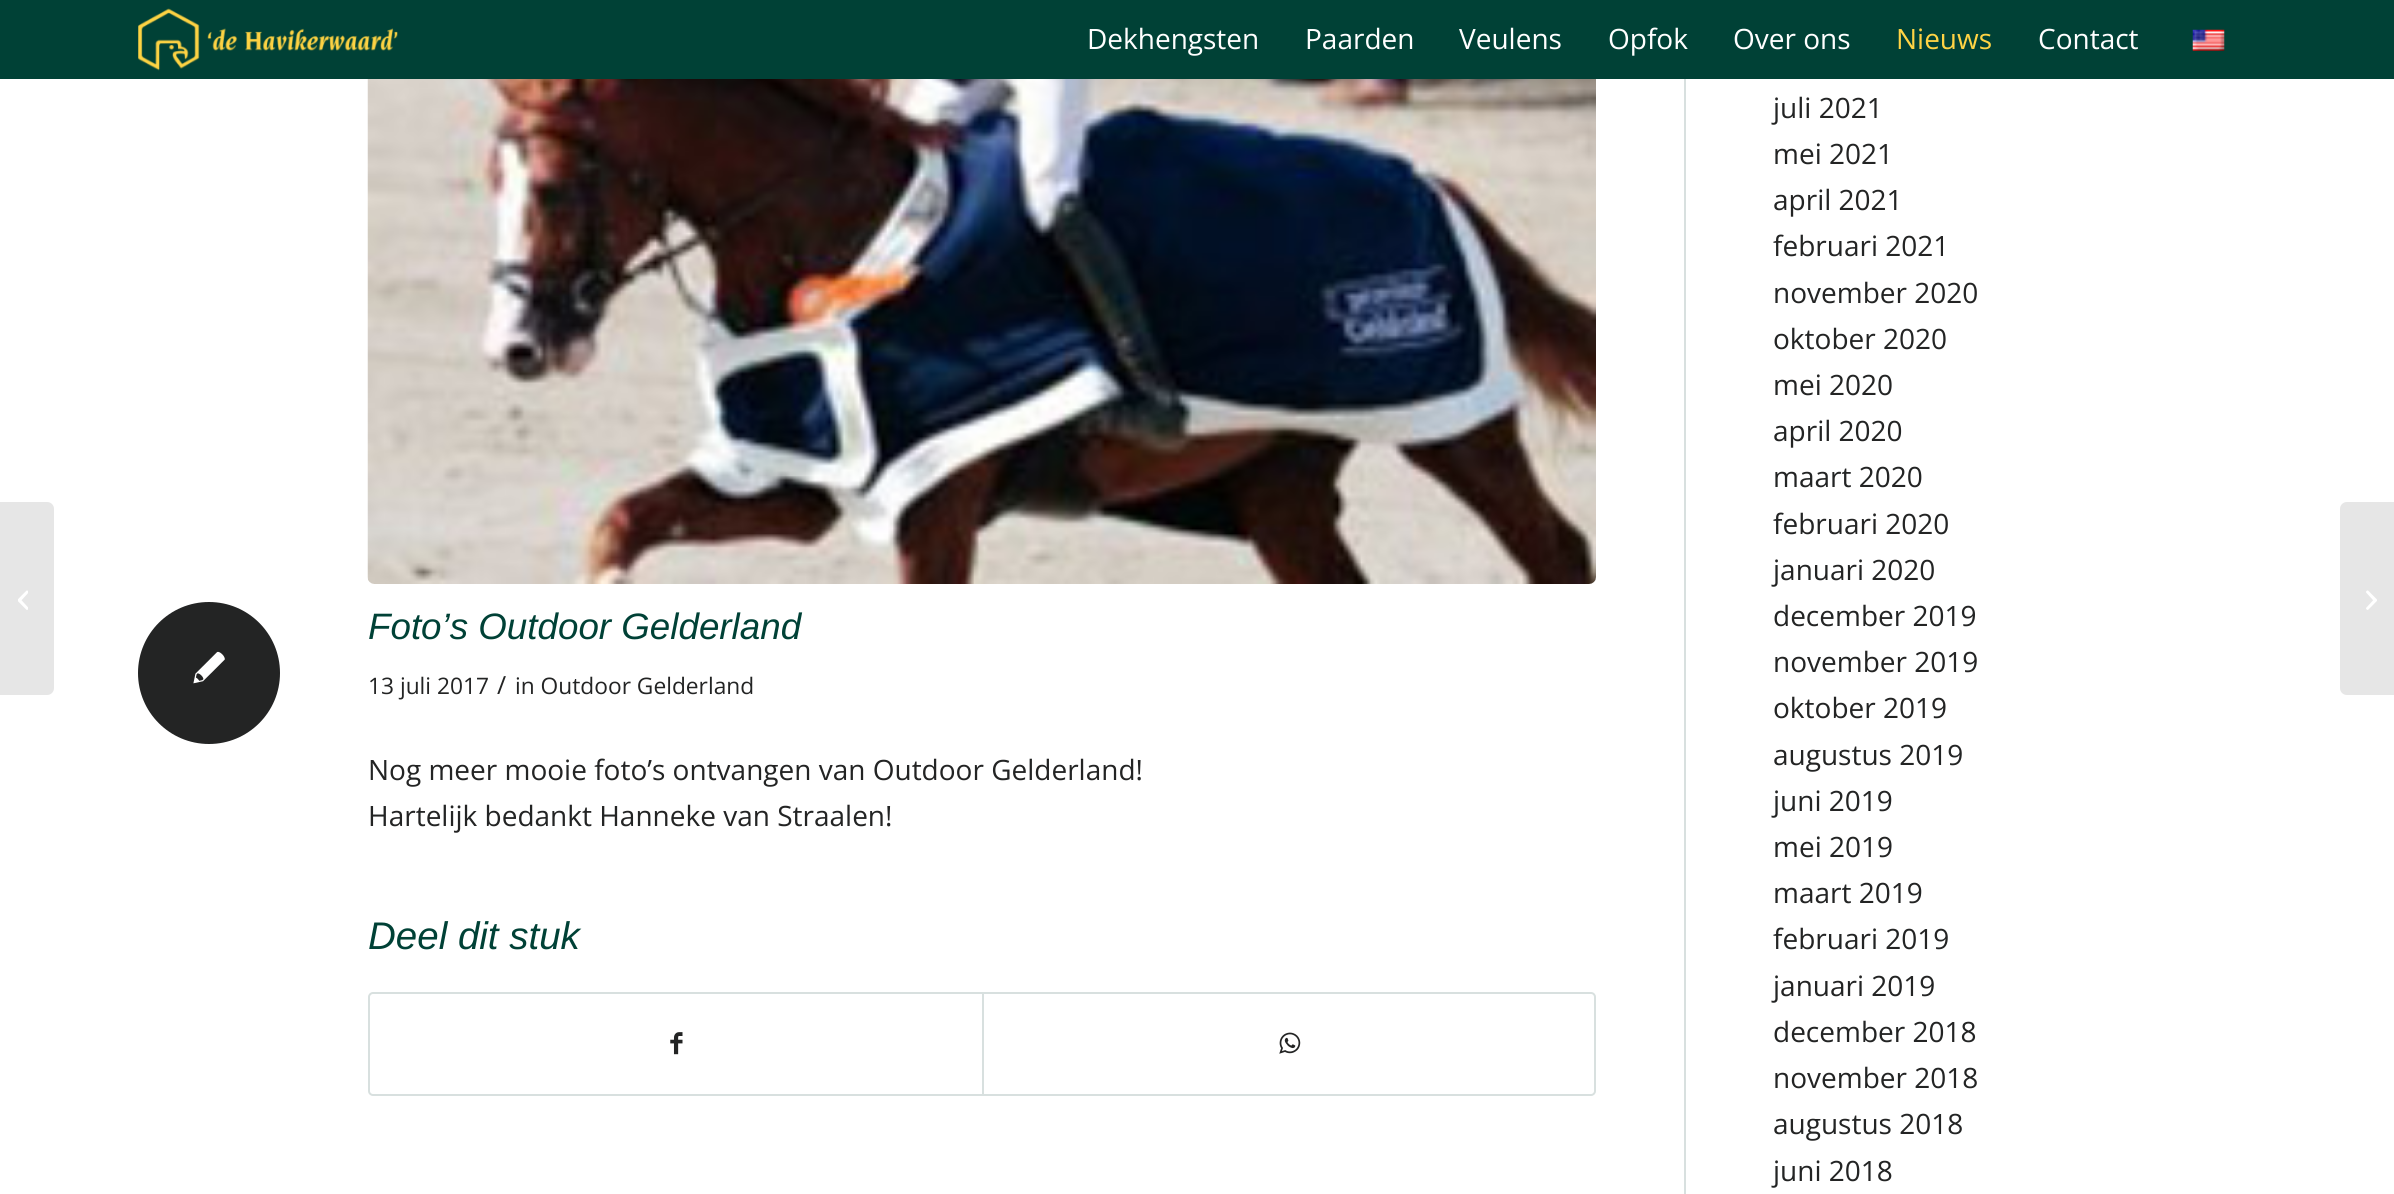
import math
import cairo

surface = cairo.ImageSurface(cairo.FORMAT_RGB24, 2394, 1194)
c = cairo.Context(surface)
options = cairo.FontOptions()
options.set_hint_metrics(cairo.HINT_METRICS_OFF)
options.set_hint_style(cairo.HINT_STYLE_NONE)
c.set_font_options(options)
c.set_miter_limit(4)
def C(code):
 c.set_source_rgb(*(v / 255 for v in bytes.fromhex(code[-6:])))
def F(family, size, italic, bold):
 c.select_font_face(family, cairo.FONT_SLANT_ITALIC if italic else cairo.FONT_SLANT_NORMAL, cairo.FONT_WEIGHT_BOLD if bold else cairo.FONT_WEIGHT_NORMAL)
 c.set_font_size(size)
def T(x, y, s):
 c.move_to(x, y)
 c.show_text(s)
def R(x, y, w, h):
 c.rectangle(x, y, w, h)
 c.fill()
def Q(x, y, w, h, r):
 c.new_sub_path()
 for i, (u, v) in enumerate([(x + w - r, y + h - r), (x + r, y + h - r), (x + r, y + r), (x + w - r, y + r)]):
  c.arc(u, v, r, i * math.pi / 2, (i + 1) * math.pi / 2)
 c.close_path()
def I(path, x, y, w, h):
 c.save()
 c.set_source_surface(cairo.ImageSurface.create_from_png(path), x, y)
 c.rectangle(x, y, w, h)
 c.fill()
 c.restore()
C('ffffff')
c.paint()
C('004136')
R(0,0,2394,79)
I('1.png',138,8,260,63)
F('Open Sans',28,0,0)
C('ffffff')
T(1087,49,'Dekhengsten')
T(1305,49,'Paarden')
T(1459,49,'Veulens')
T(1608,49,'Opfok')
T(1733,49,'Over ons')
C('ffd344')
T(1896,49,'Nieuws')
C('ffffff')
T(2038,49,'Contact')
I('2.png',2192,29,33,22)
C('e6e6e6')
c.new_path()
c.move_to(0,502)
c.line_to(47,502)
c.curve_to(51,502,54,505,54,509)
c.line_to(54,688)
c.curve_to(54,692,51,695,47,695)
c.line_to(0,695)
c.close_path()
c.fill()
I('3.png',18,590,10,20)
C('d8e0df')
R(1684,79,2,1115)
I('4.png',367,79,1229,505)
C('232424')
c.arc(209,673,71,0,2 * math.pi)
c.fill()
I('5.png',193,651,32,33)
F('Liberation Sans',36.75,1,0)
C('004136')
T(368,639,'Foto’s Outdoor Gelderland')
F('Open Sans',22.75,0,0)
C('232424')
T(368,694,'13 juli 2017')
F('Open Sans',25,0,0)
T(497,694,'/')
F('Open Sans',22.75,0,0)
T(515,694,'in Outdoor Gelderland')
F('Open Sans',28,0,0)
T(368,780,'Nog meer mooie foto’s ontvangen van Outdoor Gelderland!')
T(368,826,'Hartelijk bedankt Hanneke van Straalen!')
F('Liberation Sans',38.5,1,0)
C('004136')
T(368,949,'Deel dit stuk')
Q(369,993,1226,102,4)
C('d8e0df')
c.stroke()
I('6.png',670,1032,13,23)
R(982,994,2,100)
I('7.png',1279,1032,22,22)
F('Open Sans',28,0,0)
C('232424')
T(1773,118,'juli 2021')
T(1773,164,'mei 2021')
T(1773,210,'april 2021')
T(1773,256,'februari 2021')
T(1773,303,'november 2020')
T(1773,349,'oktober 2020')
T(1773,395,'mei 2020')
T(1773,441,'april 2020')
T(1773,487,'maart 2020')
T(1773,534,'februari 2020')
T(1773,580,'januari 2020')
T(1773,626,'december 2019')
T(1773,672,'november 2019')
T(1773,718,'oktober 2019')
T(1773,765,'augustus 2019')
T(1773,811,'juni 2019')
T(1773,857,'mei 2019')
T(1773,903,'maart 2019')
T(1773,949,'februari 2019')
T(1773,996,'januari 2019')
T(1773,1042,'december 2018')
T(1773,1088,'november 2018')
T(1773,1134,'augustus 2018')
T(1773,1181,'juni 2018')
C('e6e6e6')
c.new_path()
c.move_to(2347,502)
c.line_to(2394,502)
c.line_to(2394,695)
c.line_to(2347,695)
c.curve_to(2343,695,2340,692,2340,688)
c.line_to(2340,509)
c.curve_to(2340,505,2343,502,2347,502)
c.close_path()
c.fill()
I('8.png',2366,590,11,20)
surface.write_to_png('o.png')
